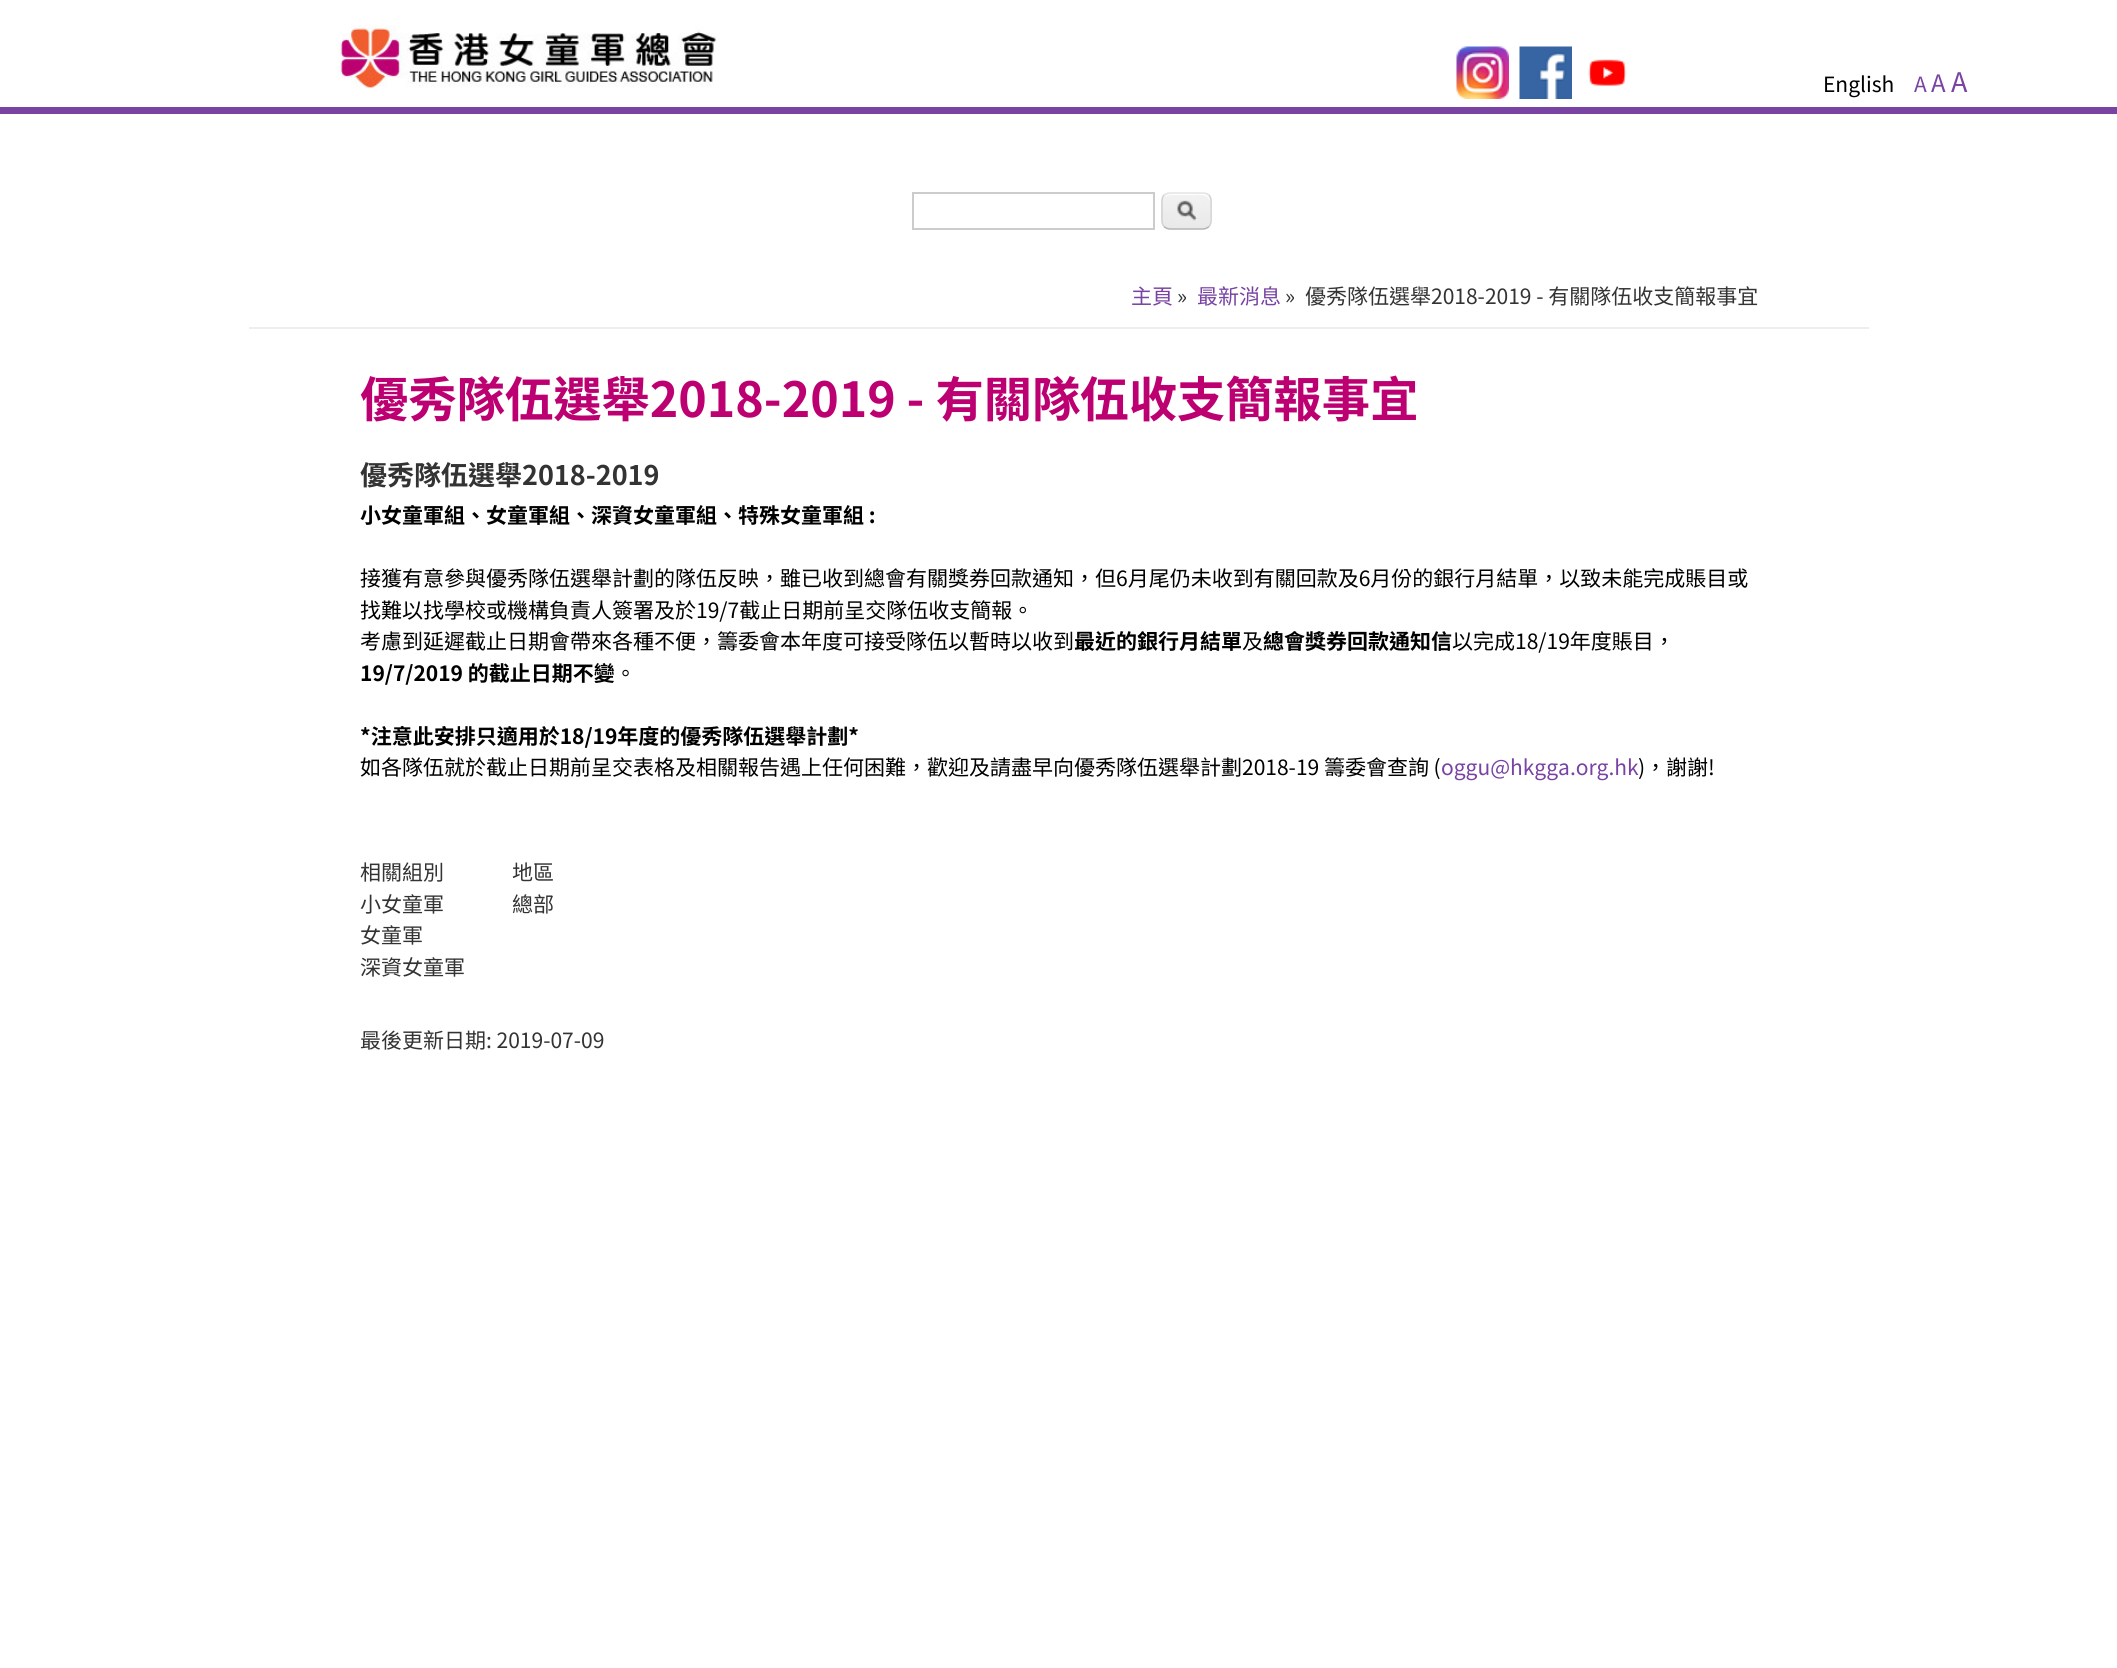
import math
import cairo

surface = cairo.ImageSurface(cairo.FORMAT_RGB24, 2117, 1668)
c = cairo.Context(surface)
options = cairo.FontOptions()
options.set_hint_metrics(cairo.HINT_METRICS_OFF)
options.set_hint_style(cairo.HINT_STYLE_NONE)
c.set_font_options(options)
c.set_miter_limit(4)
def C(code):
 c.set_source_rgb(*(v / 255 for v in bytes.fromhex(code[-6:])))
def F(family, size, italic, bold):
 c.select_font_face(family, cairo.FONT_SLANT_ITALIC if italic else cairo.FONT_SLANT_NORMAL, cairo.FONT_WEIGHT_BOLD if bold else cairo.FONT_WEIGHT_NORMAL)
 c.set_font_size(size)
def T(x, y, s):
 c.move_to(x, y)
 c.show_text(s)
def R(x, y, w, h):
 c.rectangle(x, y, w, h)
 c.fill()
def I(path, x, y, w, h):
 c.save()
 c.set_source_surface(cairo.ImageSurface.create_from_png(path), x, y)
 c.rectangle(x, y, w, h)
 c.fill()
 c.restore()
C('ffffff')
c.paint()
I('1.png',337,25,380,63)
I('2.png',1456,46,53,53)
I('3.png',1519,46,53,53)
I('4.png',1588,59,39,27)
F('Noto Sans TC',21,0,0)
C('000000')
T(1823,92,'English')
C('7843a3')
T(1914,92,'A')
F('Noto Sans TC',24,0,0)
T(1931,92,'A')
F('Noto Sans TC',27,0,0)
T(1951,92,'A')
R(0,107,2117,7)
c.rectangle(913,193,241,36)
C('cccccc')
c.stroke()
I('5.png',1161,193,51,37)
C('ffffff')
c.new_path()
c.move_to(1170,195)
c.line_to(1192,195)
c.curve_to(1197,195,1208,193,1210,201)
c.line_to(1210,224)
c.curve_to(1210,223,1211,222,1211,220)
c.line_to(1211,202)
c.curve_to(1211,198,1207,194,1203,194)
c.line_to(1171,194)
c.curve_to(1169,194,1167,195,1165,196)
c.curve_to(1167,196,1168,195,1170,195)
c.close_path()
c.fill()
c.new_path()
c.move_to(1164,195)
c.curve_to(1165.5,193.5,1168,193,1170,193)
c.line_to(1203,193)
c.curve_to(1205,193,1207.5,193.5,1209,195)
C('e4e4e4')
c.set_line_width(1.5)
c.stroke()
c.new_path()
c.move_to(1209,195)
c.curve_to(1210.5,196.5,1211,199,1211,201)
c.line_to(1211,220.5)
c.curve_to(1211,222.5,1210.5,225,1209,226.5)
C('d2d2d2')
c.stroke()
c.new_path()
c.move_to(1209,226.5)
c.curve_to(1207.5,228,1205,229,1203,229)
c.line_to(1170,229)
c.curve_to(1168,229,1165.5,228,1164,226.5)
C('b4b4b4')
c.stroke()
c.new_path()
c.move_to(1164,226.5)
c.curve_to(1162.5,225,1162,222.5,1162,220.5)
c.line_to(1162,201)
c.curve_to(1162,199,1162.5,196.5,1164,195)
C('d2d2d2')
c.stroke()
C('eeeeee')
R(249,327,1620,2)
F('Noto Sans TC',21,0,0)
C('7843a3')
T(1131,304,'主頁')
C('333333')
T(1177,304,'»')
C('7843a3')
T(1197,304,'最新消息')
C('333333')
T(1285,304,'»')
T(1305,304,'優秀隊伍選舉2018-2019 - 有關隊伍收支簡報事宜')
F('Noto Sans TC',48.3,0,1)
C('bd0071')
T(360,417,'優秀隊伍選舉2018-2019 - 有關隊伍收支簡報事宜')
F('Noto Sans TC',27,0,1)
C('333333')
T(360,485,'優秀隊伍選舉2018-2019')
F('Noto Sans TC',21,0,1)
C('000000')
T(360,523,'小女童軍組、女童軍組、深資女童軍組、特殊女童軍組 :')
F('Noto Sans TC',21,0,0)
T(360,586,'接獲有意參與優秀隊伍選舉計劃的隊伍反映，雖已收到總會有關獎券回款通知，但6月尾仍未收到有關回款及6月份的銀行月結單，以致未能完成賬目或')
T(360,618,'找難以找學校或機構負責人簽署及於19/7截止日期前呈交隊伍收支簡報。')
T(360,649,'考慮到延遲截止日期會帶來各種不便，籌委會本年度可接受隊伍以暫時以收到')
F('Noto Sans TC',21,0,1)
T(1074,649,'最近的銀行月結單')
F('Noto Sans TC',21,0,0)
T(1242,649,'及')
F('Noto Sans TC',21,0,1)
T(1263,649,'總會獎券回款通知信')
F('Noto Sans TC',21,0,0)
T(1452,649,'以完成18/19年度賬目，')
F('Noto Sans TC',21,0,1)
T(360,681,'19/7/2019 的截止日期不變')
F('Noto Sans TC',21,0,0)
T(615,681,'。')
F('Noto Sans TC',21,0,1)
T(360,744,'*注意此安排只適用於18/19年度的優秀隊伍選舉計劃*')
F('Noto Sans TC',21,0,0)
T(360,775,'如各隊伍就於截止日期前呈交表格及相關報告遇上任何困難，歡迎及請盡早向優秀隊伍選舉計劃2018-19 籌委會查詢 (')
C('7843a3')
T(1441,775,'oggu@hkgga.org.hk')
C('000000')
T(1638,775,')，謝謝!')
C('333333')
T(360,880,'相關組別')
T(360,912,'小女童軍')
T(360,943,'女童軍')
T(360,975,'深資女童軍')
T(512,880,'地區')
T(512,912,'總部')
T(360,1048,'最後更新日期: 2019-07-09')
surface.write_to_png('o.png')
